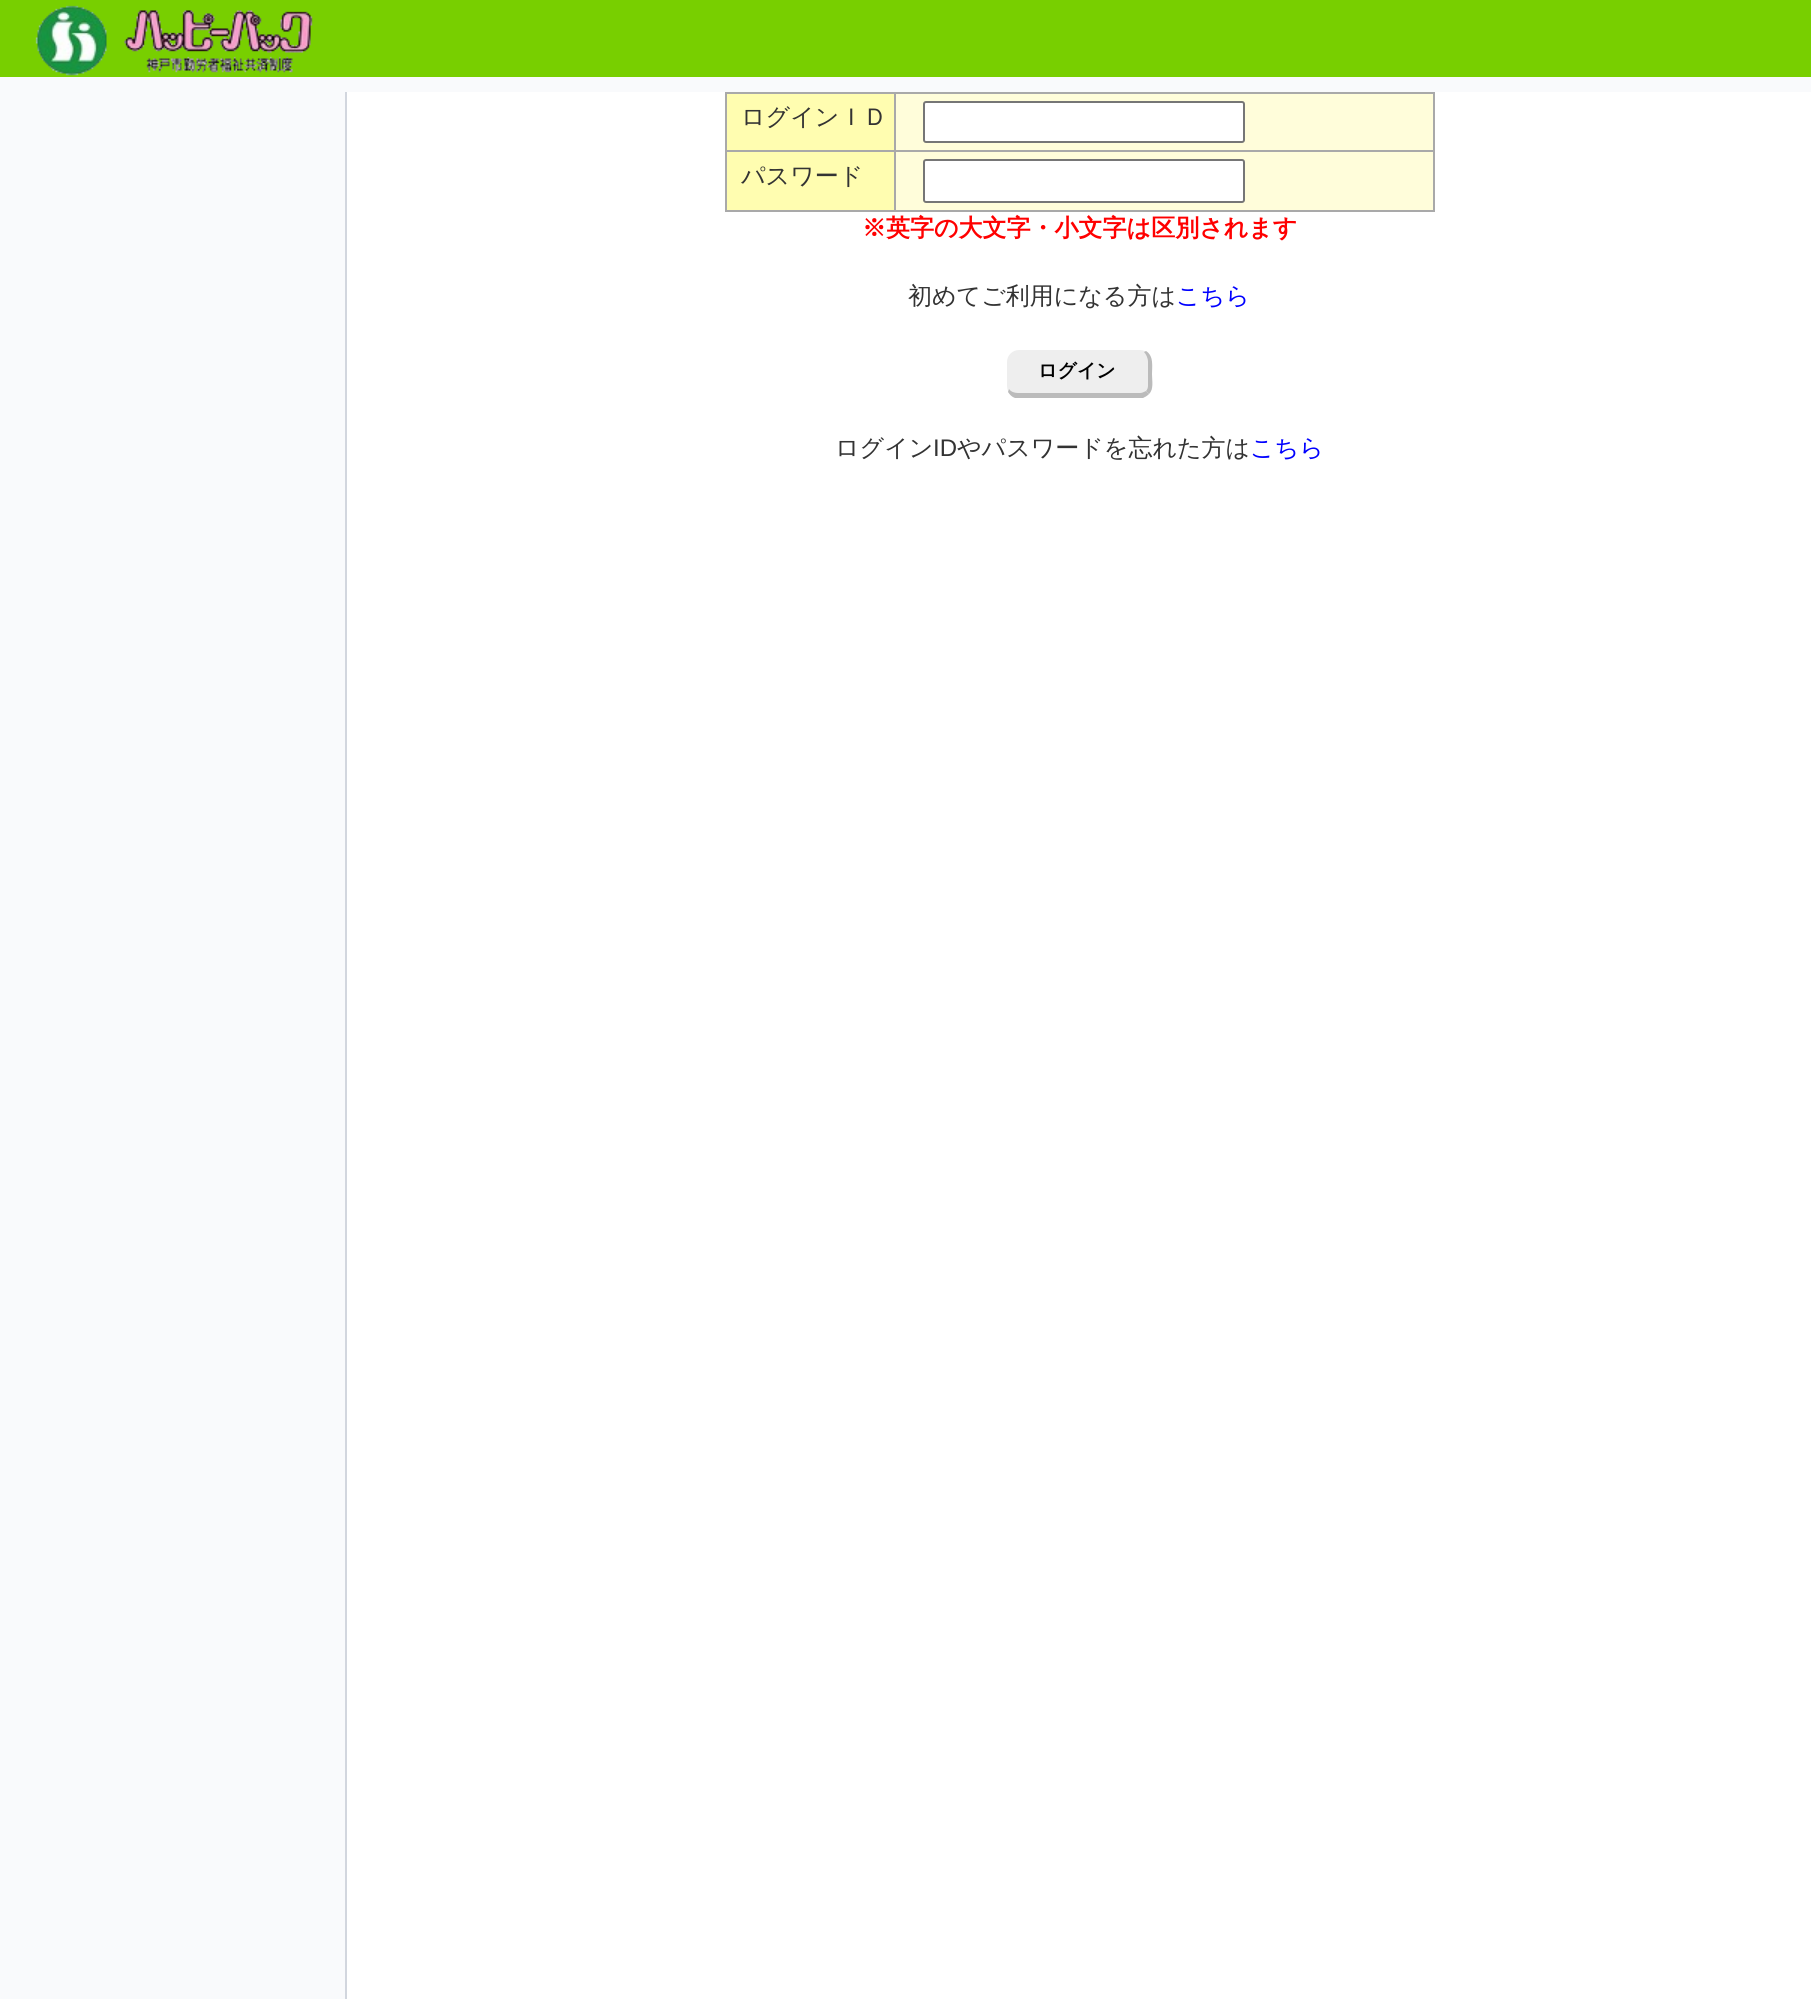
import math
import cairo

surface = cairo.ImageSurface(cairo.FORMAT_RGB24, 1811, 1999)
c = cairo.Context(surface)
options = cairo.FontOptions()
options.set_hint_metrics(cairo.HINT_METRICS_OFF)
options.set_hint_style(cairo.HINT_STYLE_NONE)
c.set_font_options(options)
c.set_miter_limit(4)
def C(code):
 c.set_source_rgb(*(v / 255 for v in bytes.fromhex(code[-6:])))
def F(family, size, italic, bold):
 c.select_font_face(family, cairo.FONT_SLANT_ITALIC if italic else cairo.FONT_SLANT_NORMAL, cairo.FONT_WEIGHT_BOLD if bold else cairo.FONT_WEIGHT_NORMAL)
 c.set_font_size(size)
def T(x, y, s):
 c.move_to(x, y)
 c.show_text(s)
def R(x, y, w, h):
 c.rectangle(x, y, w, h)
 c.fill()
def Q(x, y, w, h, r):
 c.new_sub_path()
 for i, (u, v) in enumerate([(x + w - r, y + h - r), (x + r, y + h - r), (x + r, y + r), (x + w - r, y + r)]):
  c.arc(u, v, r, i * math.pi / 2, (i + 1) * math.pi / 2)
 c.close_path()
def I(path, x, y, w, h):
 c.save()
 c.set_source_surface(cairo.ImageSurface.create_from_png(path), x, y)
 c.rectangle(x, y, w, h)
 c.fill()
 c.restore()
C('f9fafc')
c.paint()
C('78cf00')
R(0,0,1811,77)
I('1.png',35,5,278,71)
C('ffffff')
R(347,92,1464,1907)
C('d2d6de')
R(345,92,2,1907)
C('a9a9a9')
R(725,92,709,2)
R(1433,92,2,120)
R(725,210,709,2)
R(725,92,2,120)
C('fffdb0')
R(727,94,167,56)
F('WenQuanYi Zen Hei Medium',24,0,0)
C('333333')
T(741,125,'ログインＩＤ')
C('fffdda')
R(896,94,537,56)
C('a9a9a9')
R(894,150,540,2)
R(894,150,2,62)
R(725,150,171,2)
R(894,92,2,60)
C('ffffff')
Q(924,102,320,40,2)
c.fill_preserve()
C('767676')
c.stroke()
C('fffdb0')
R(727,152,167,58)
C('333333')
T(741,184,'パスワード')
C('fffdda')
R(896,152,537,58)
C('ffffff')
Q(924,160,320,42,2)
c.fill_preserve()
C('767676')
c.stroke()
F('WenQuanYi Zen Hei',24,0,1)
C('ff0000')
T(862,236,'※英字の大文字・小文字は区別されます')
F('WenQuanYi Zen Hei Medium',24,0,0)
C('333333')
T(908,304,'初めてご利用になる方は')
C('0000ff')
T(1176,304,'こちら')
C('eeeeee')
Q(1007,350,145,48,12)
c.fill()
C('bbbbbb')
c.new_path()
c.move_to(1146,351)
c.curve_to(1154,356,1152,367,1152,374)
c.curve_to(1152,381,1154,389,1149,394)
c.line_to(1146,391)
c.curve_to(1147,390,1148,388,1148,386)
c.line_to(1148,362)
c.curve_to(1148,358,1146,354,1144,352)
c.close_path()
c.fill()
c.new_path()
c.move_to(1015,398)
c.curve_to(1012,397,1010,395,1008,392)
c.line_to(1009,389)
c.curve_to(1011,392,1015,393,1018,393)
c.line_to(1140,393)
c.curve_to(1142,393,1144,392,1146,391)
c.line_to(1149,394)
c.curve_to(1147,396,1145,397,1143,398)
c.close_path()
c.fill()
F('WenQuanYi Zen Hei',19,0,1)
C('000000')
T(1038,377,'ログイン')
F('WenQuanYi Zen Hei Medium',24,0,0)
C('333333')
T(835,456,'ログイン')
F('Liberation Sans',24,0,0)
T(933,456,'ID')
F('WenQuanYi Zen Hei Medium',24,0,0)
T(957,456,'やパスワードを忘れた方は')
C('0000ff')
T(1250,456,'こちら')
surface.write_to_png('o.png')
